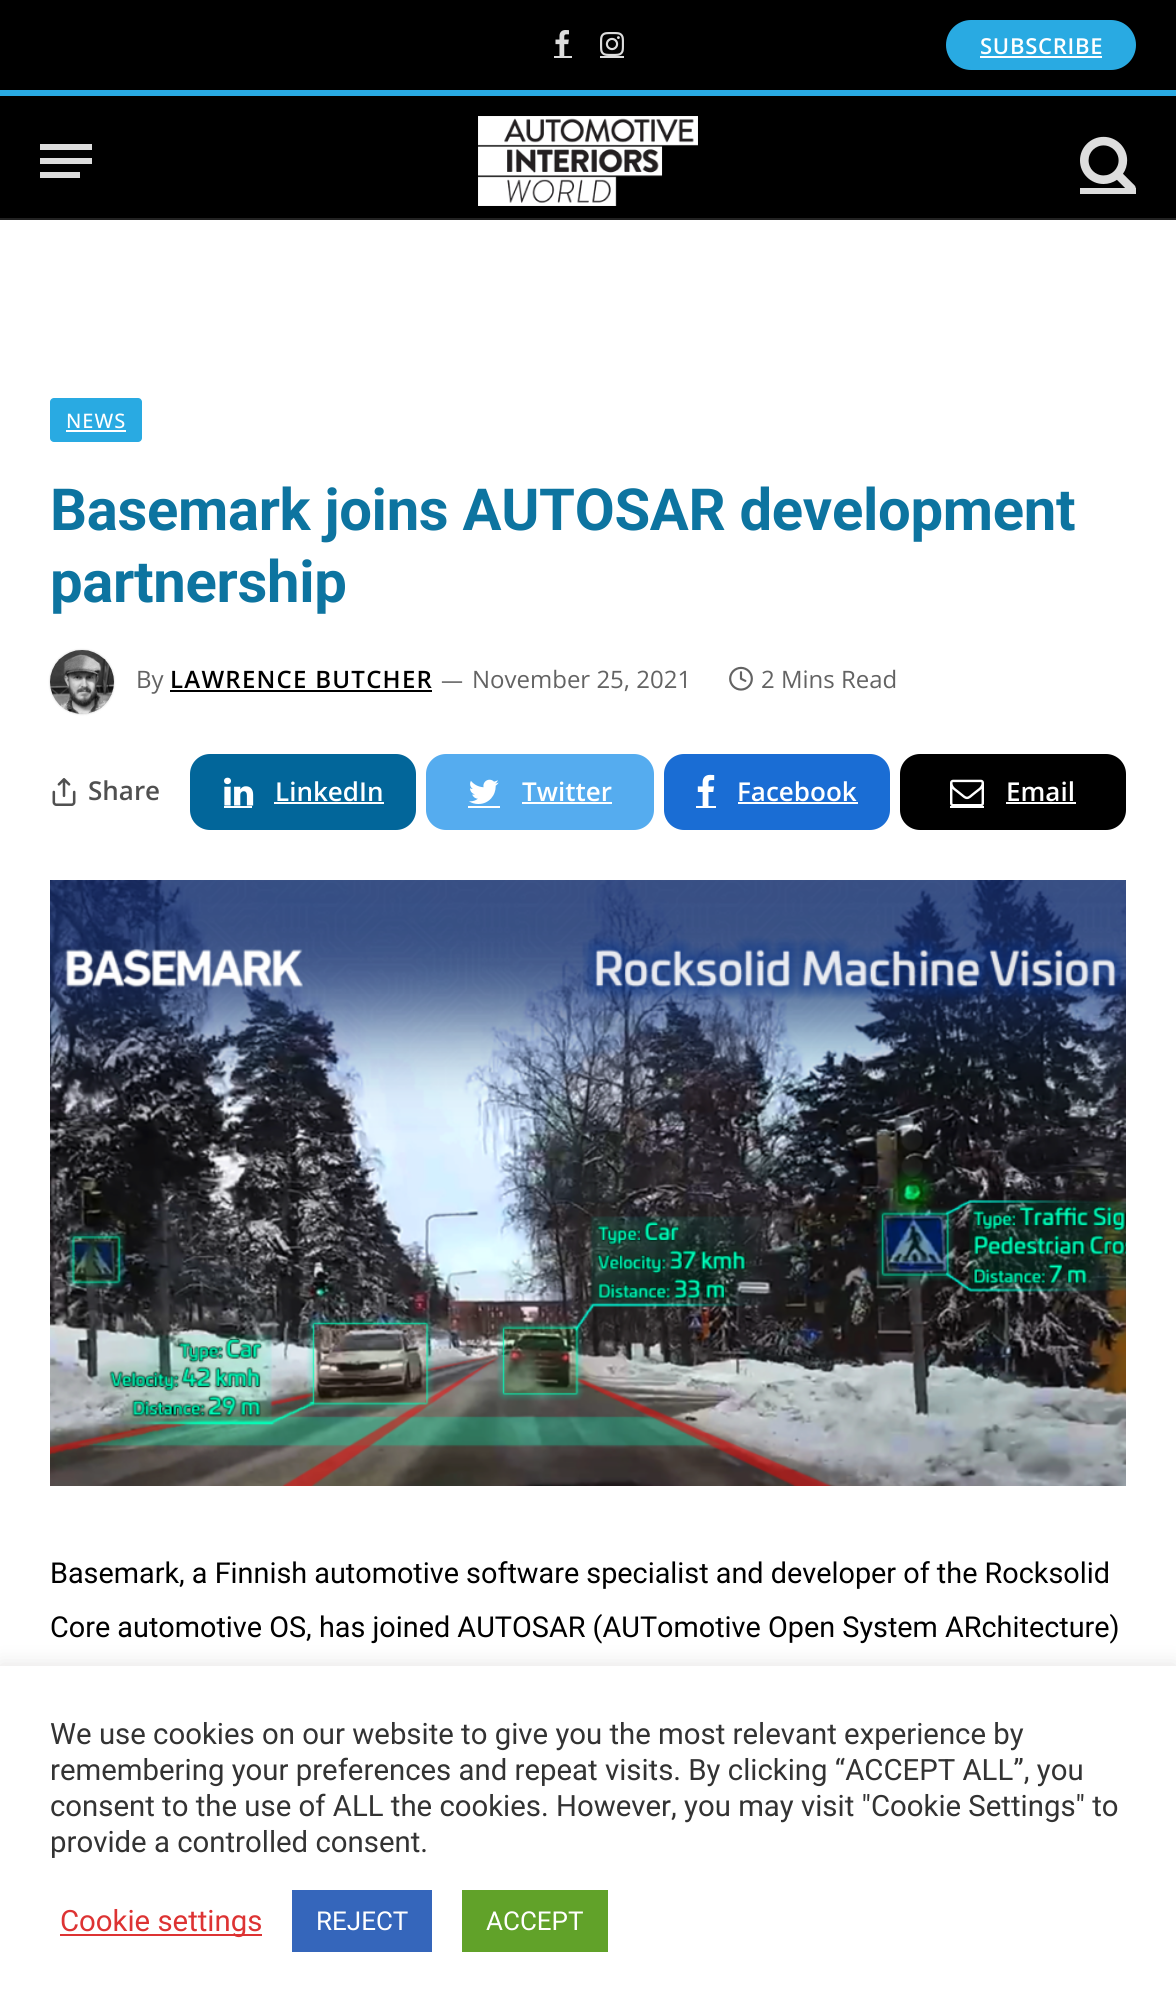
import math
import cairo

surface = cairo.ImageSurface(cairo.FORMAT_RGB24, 1176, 2011)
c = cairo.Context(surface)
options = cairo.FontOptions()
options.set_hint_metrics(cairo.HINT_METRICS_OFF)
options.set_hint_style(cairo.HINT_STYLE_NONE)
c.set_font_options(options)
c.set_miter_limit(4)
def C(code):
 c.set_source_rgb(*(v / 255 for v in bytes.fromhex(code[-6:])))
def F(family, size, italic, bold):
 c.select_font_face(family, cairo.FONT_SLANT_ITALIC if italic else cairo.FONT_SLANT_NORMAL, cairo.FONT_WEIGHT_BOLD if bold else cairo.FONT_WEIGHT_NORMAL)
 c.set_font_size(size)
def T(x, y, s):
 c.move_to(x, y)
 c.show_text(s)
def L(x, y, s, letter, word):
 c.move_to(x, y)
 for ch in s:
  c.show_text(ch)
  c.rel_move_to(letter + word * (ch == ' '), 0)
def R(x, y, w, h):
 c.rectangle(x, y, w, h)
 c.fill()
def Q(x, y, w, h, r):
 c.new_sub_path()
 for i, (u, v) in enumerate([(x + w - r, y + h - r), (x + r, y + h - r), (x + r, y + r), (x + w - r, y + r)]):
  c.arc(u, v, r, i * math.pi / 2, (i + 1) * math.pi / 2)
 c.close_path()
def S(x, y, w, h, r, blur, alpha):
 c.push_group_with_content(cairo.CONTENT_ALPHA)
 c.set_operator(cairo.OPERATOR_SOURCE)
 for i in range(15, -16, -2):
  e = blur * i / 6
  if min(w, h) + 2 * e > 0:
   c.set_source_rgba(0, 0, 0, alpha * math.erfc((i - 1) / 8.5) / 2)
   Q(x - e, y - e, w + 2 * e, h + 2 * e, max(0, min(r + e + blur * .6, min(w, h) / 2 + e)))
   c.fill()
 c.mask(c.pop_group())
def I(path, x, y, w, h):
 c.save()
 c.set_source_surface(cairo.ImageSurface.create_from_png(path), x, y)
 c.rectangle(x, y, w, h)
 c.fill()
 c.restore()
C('ffffff')
c.paint()
C('000000')
R(0,0,1176,90)
I('1.png',555,30,14,26)
C('dddddd')
R(554,56,18,2)
I('2.png',600,32,24,24)
R(600,56,24,2)
C('29aae2')
Q(946,20,190,50,25)
c.fill()
F('Open Sans SemiBold',22,0,0)
C('ffffff')
L(980,54,'SUBSCRIBE',.75,0)
R(980,56,122,2)
C('000000')
R(0,96,1176,122)
C('29aae2')
R(0,90,1176,6)
C('222222')
R(0,218,1176,2)
C('dddddd')
R(40,172,40,6)
R(40,144,52,6)
R(40,158,52,6)
I('3.png',478,116,220,90)
I('4.png',1080,136,56,52)
R(1080,188,56,6)
C('29aae2')
Q(50,398,92,44,4)
c.fill()
F('Open Sans Medium',20,0,0)
C('ffffff')
L(66,428,'NEWS',1,0)
R(66,430,60,2)
F('Roboto',58,0,1)
C('0d74a0')
L(50,530,'Basemark joins AUTOSAR development',-.3,0)
L(50,602,'partnership',-.3,0)
C('000000')
S(50,650,64,64,32,1,.2)
I('5.png',50,650,64,64)
F('Open Sans',24,0,0)
C('636363')
T(136,688,'By')
F('Open Sans SemiBold',24,0,0)
C('000000')
L(170,688,'LAWRENCE BUTCHER',1.25,0)
R(170,690,262,2)
F('Open Sans',22,0,0)
C('636363')
T(441,688,'—')
F('Open Sans',24,0,0)
T(472,688,'November 25, 2021')
I('6.png',729,666,24,25)
T(761,688,'2 Mins Read')
I('7.png',52,778,24,28)
F('Open Sans SemiBold',26,0,0)
C('505050')
T(88,800,'Share')
C('02669a')
Q(190,754,226,76,20)
c.fill()
I('8.png',224,777,30,29)
C('ffffff')
R(224,806,28,2)
T(275,801,'LinkedIn')
R(274,802,110,2)
C('55acef')
Q(426,754,228,76,20)
c.fill()
I('9.png',469,779,30,25)
C('ffffff')
R(468,806,32,2)
T(522,801,'Twitter')
R(522,802,90,2)
C('1a6dd4')
Q(664,754,226,76,20)
c.fill()
I('10.png',697,774,18,32)
C('ffffff')
R(696,806,20,2)
T(737,801,'Facebook')
R(738,802,120,2)
C('000000')
Q(900,754,226,76,20)
c.fill()
I('11.png',950,779,34,27)
C('ffffff')
R(950,806,34,2)
T(1006,801,'Email')
R(1006,802,70,2)
I('12.png',50,880,1076,606)
F('Roboto',28.8,0,0)
C('000000')
T(50,1583,'Basemark, a Finnish automotive software specialist and developer of the Rocksolid')
T(50,1637,'Core automotive OS, has joined AUTOSAR (AUTomotive Open System ARchitecture)')
C('acabab')
S(0,1664,1176,346,0,10,.3)
C('ffffff')
R(0,1666,1176,345)
F('Roboto',29.35,0,0)
C('333333')
T(50,1744,'We use cookies on our website to give you the most relevant experience by')
T(50,1780,'remembering your preferences and repeat visits. By clicking “ACCEPT ALL”, you')
T(50,1816,'consent to the use of ALL the cookies. However, you may visit "Cookie Settings" to')
T(50,1852,'provide a controlled consent.')
C('dd3333')
R(60,1934,202,2)
T(60,1931,'Cookie settings')
C('3566bb')
R(292,1890,140,62)
F('Roboto',26,0,0)
C('ffffff')
T(316,1930,'REJECT')
C('61a229')
R(462,1890,146,62)
C('ffffff')
T(486,1930,'ACCEPT')
surface.write_to_png('o.png')
